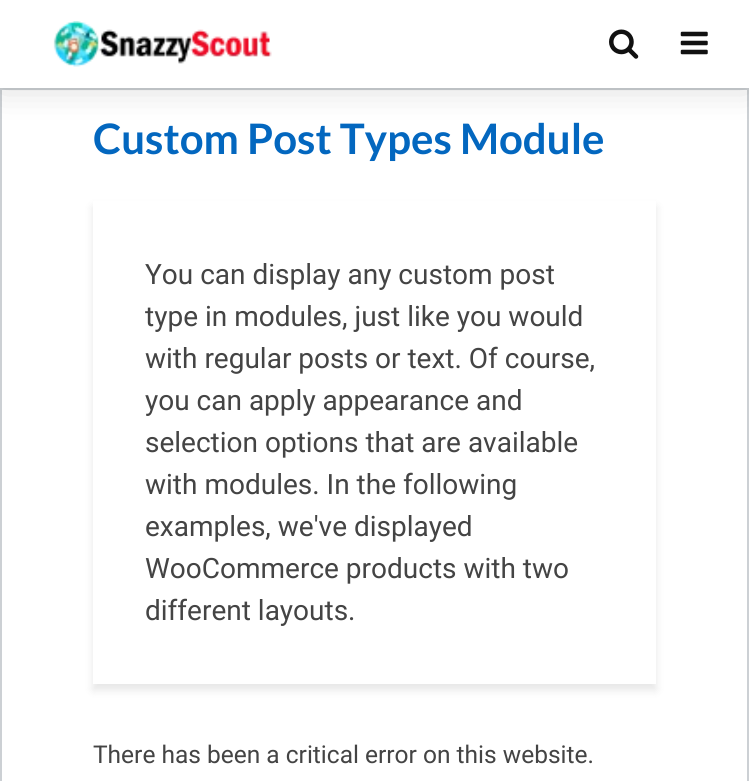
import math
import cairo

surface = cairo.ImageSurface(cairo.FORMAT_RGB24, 749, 781)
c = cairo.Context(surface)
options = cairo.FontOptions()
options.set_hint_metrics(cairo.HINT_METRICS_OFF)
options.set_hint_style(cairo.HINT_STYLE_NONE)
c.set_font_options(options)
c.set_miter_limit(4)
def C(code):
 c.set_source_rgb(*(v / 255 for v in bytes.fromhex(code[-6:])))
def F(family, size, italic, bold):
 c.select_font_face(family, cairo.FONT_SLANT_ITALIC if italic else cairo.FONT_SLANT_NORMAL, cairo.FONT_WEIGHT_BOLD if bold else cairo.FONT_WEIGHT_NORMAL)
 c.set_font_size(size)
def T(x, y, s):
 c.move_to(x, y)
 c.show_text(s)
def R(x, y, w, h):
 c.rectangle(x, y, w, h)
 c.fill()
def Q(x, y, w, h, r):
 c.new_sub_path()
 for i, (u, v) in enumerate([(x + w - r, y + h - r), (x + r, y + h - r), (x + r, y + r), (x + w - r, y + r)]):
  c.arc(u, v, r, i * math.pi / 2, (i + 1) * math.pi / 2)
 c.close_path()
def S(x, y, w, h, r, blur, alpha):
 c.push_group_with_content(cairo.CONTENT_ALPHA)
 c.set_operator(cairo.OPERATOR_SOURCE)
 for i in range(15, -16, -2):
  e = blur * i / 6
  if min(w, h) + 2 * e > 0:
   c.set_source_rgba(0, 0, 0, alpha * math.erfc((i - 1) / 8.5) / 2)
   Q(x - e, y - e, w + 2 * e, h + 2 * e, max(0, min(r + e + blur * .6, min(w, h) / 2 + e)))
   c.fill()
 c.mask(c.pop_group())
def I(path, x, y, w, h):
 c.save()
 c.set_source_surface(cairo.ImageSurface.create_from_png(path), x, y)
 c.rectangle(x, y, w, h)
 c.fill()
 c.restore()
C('ffffff')
c.paint()
c.rectangle(1,89,747,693)
C('ccd0d4')
c.stroke()
C('000000')
S(0,0,749,88,0,17.5,.15)
C('ffffff')
R(0,0,749,88)
I('1.png',53,21,219,46)
I('2.png',609,29,30,30)
I('3.png',680,31,28,24)
F('Lato',42,0,1)
C('0367bf')
T(93,154,'Custom Post Types Module')
c.save()
c.set_fill_rule(cairo.FILL_RULE_EVEN_ODD)
c.new_path()
c.move_to(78,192)
c.line_to(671,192)
c.line_to(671,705)
c.line_to(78,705)
c.close_path()
c.move_to(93,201)
c.line_to(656,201)
c.line_to(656,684)
c.line_to(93,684)
c.close_path()
c.clip()
C('000101')
S(93,207,563,483,0,4.5,.1)
c.restore()
F('Roboto',28,0,0)
C('444444')
T(145,284,'You can display any custom post')
T(145,326,'type in modules, just like you would')
T(145,368,'with regular posts or text. Of course,')
T(145,410,'you can apply appearance and')
T(145,452,'selection options that are available')
T(145,494,'with modules. In the following')
T(145,536,'examples, we\'ve displayed')
T(145,578,'WooCommerce products with two')
T(145,620,'different layouts.')
F('Roboto',24.5,0,0)
T(93,763,'There has been a critical error on this website.')
surface.write_to_png('o.png')
